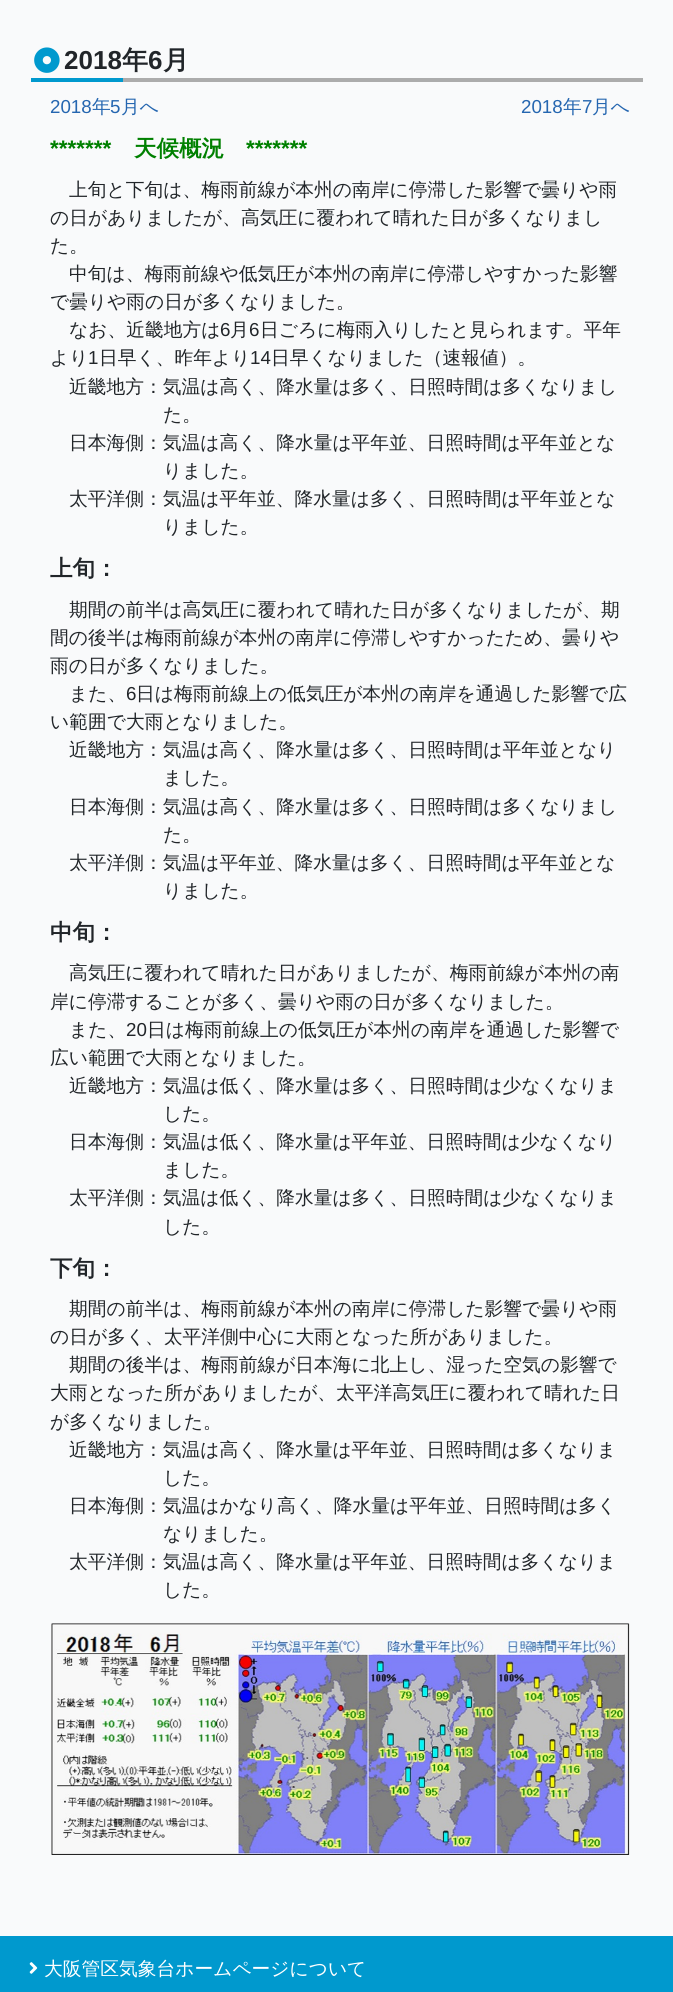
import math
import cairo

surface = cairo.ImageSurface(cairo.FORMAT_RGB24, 673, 1992)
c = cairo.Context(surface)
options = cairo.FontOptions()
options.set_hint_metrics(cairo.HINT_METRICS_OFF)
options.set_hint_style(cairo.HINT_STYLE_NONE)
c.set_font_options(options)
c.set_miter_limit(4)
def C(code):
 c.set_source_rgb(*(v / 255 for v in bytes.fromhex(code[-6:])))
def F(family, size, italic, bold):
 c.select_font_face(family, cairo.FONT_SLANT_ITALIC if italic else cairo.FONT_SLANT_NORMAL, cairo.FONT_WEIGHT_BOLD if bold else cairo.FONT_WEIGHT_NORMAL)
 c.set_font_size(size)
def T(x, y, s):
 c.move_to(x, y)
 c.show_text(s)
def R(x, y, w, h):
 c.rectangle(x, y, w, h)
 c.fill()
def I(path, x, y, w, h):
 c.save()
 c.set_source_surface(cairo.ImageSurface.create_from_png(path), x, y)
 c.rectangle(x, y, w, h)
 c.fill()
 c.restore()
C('f9fafb')
c.paint()
C('acacac')
R(123,78,520,4)
I('1.png',34,47,26,26)
F('Liberation Sans',26,0,1)
C('212529')
T(64,69,'2018')
F('WenQuanYi Zen Hei',26,0,1)
T(122,69,'年')
F('Liberation Sans',26,0,1)
T(148,69,'6')
F('WenQuanYi Zen Hei',26,0,1)
T(163,69,'月')
C('0099ce')
R(31,78,92,4)
F('Liberation Sans',18.75,0,0)
C('2566b0')
T(50,113,'2018')
F('WenQuanYi Zen Hei Medium',18.75,0,0)
T(92,113,'年')
F('Liberation Sans',18.75,0,0)
T(110,113,'5')
F('WenQuanYi Zen Hei Medium',18.75,0,0)
T(121,113,'月へ')
F('Liberation Sans',18.75,0,0)
T(521,113,'2018')
F('WenQuanYi Zen Hei Medium',18.75,0,0)
T(563,113,'年')
F('Liberation Sans',18.75,0,0)
T(582,113,'7')
F('WenQuanYi Zen Hei Medium',18.75,0,0)
T(592,113,'月へ')
F('Liberation Sans',22.5,0,1)
C('008000')
T(50,156,'*******')
F('WenQuanYi Zen Hei',22.5,0,1)
T(134,156,'天候概況')
F('Liberation Sans',22.5,0,1)
T(246,156,'*******')
F('WenQuanYi Zen Hei Medium',18.75,0,0)
C('212529')
T(69,196,'上旬と下旬は、梅雨前線が本州の南岸に停滞した影響で曇りや雨')
T(50,224,'の日がありましたが、高気圧に覆われて晴れた日が多くなりまし')
T(50,252,'た。')
T(69,280,'中旬は、梅雨前線や低気圧が本州の南岸に停滞しやすかった影響')
T(50,308,'で曇りや雨の日が多くなりました。')
T(69,336,'なお、近畿地方は')
F('Liberation Sans',18.75,0,0)
T(220,336,'6')
F('WenQuanYi Zen Hei Medium',18.75,0,0)
T(230,336,'月')
F('Liberation Sans',18.75,0,0)
T(249,336,'6')
F('WenQuanYi Zen Hei Medium',18.75,0,0)
T(260,336,'日ごろに梅雨入りしたと見られます。平年')
T(50,364,'より')
F('Liberation Sans',18.75,0,0)
T(88,364,'1')
F('WenQuanYi Zen Hei Medium',18.75,0,0)
T(99,364,'日早く、昨年より')
F('Liberation Sans',18.75,0,0)
T(250,364,'14')
F('WenQuanYi Zen Hei Medium',18.75,0,0)
T(271,364,'日早くなりました（速報値）。')
T(69,393,'近畿地方：気温は高く、降水量は多く、日照時間は多くなりまし')
T(163,421,'た。')
T(69,449,'日本海側：気温は高く、降水量は平年並、日照時間は平年並とな')
T(163,477,'りました。')
T(69,505,'太平洋側：気温は平年並、降水量は多く、日照時間は平年並とな')
T(163,533,'りました。')
F('WenQuanYi Zen Hei',22.5,0,1)
T(50,576,'上旬：')
F('WenQuanYi Zen Hei Medium',18.75,0,0)
T(69,616,'期間の前半は高気圧に覆われて晴れた日が多くなりましたが、期')
T(50,644,'間の後半は梅雨前線が本州の南岸に停滞しやすかったため、曇りや')
T(50,672,'雨の日が多くなりました。')
T(69,700,'また、')
F('Liberation Sans',18.75,0,0)
T(126,700,'6')
F('WenQuanYi Zen Hei Medium',18.75,0,0)
T(136,700,'日は梅雨前線上の低気圧が本州の南岸を通過した影響で広')
T(50,728,'い範囲で大雨となりました。')
T(69,756,'近畿地方：気温は高く、降水量は多く、日照時間は平年並となり')
T(163,784,'ました。')
T(69,813,'日本海側：気温は高く、降水量は多く、日照時間は多くなりまし')
T(163,841,'た。')
T(69,869,'太平洋側：気温は平年並、降水量は多く、日照時間は平年並とな')
T(163,897,'りました。')
F('WenQuanYi Zen Hei',22.5,0,1)
T(50,940,'中旬：')
F('WenQuanYi Zen Hei Medium',18.75,0,0)
T(69,979,'高気圧に覆われて晴れた日がありましたが、梅雨前線が本州の南')
T(50,1008,'岸に停滞することが多く、曇りや雨の日が多くなりました。')
T(69,1036,'また、')
F('Liberation Sans',18.75,0,0)
T(126,1036,'20')
F('WenQuanYi Zen Hei Medium',18.75,0,0)
T(147,1036,'日は梅雨前線上の低気圧が本州の南岸を通過した影響で')
T(50,1064,'広い範囲で大雨となりました。')
T(69,1092,'近畿地方：気温は低く、降水量は多く、日照時間は少なくなりま')
T(163,1120,'した。')
T(69,1148,'日本海側：気温は低く、降水量は平年並、日照時間は少なくなり')
T(163,1176,'ました。')
T(69,1204,'太平洋側：気温は低く、降水量は多く、日照時間は少なくなりま')
T(163,1233,'した。')
F('WenQuanYi Zen Hei',22.5,0,1)
T(50,1276,'下旬：')
F('WenQuanYi Zen Hei Medium',18.75,0,0)
T(69,1315,'期間の前半は、梅雨前線が本州の南岸に停滞した影響で曇りや雨')
T(50,1343,'の日が多く、太平洋側中心に大雨となった所がありました。')
T(69,1371,'期間の後半は、梅雨前線が日本海に北上し、湿った空気の影響で')
T(50,1399,'大雨となった所がありましたが、太平洋高気圧に覆われて晴れた日')
T(50,1428,'が多くなりました。')
T(69,1456,'近畿地方：気温は高く、降水量は平年並、日照時間は多くなりま')
T(163,1484,'した。')
T(69,1512,'日本海側：気温はかなり高く、降水量は平年並、日照時間は多く')
T(163,1540,'なりました。')
T(69,1568,'太平洋側：気温は高く、降水量は平年並、日照時間は多くなりま')
T(163,1596,'した。')
I('2.png',51,1623,579,232)
C('0099ce')
R(0,1936,673,56)
I('3.png',29,1962,9,12)
C('ffffff')
T(44,1975,'大阪管区気象台ホームページについて')
surface.write_to_png('o.png')
